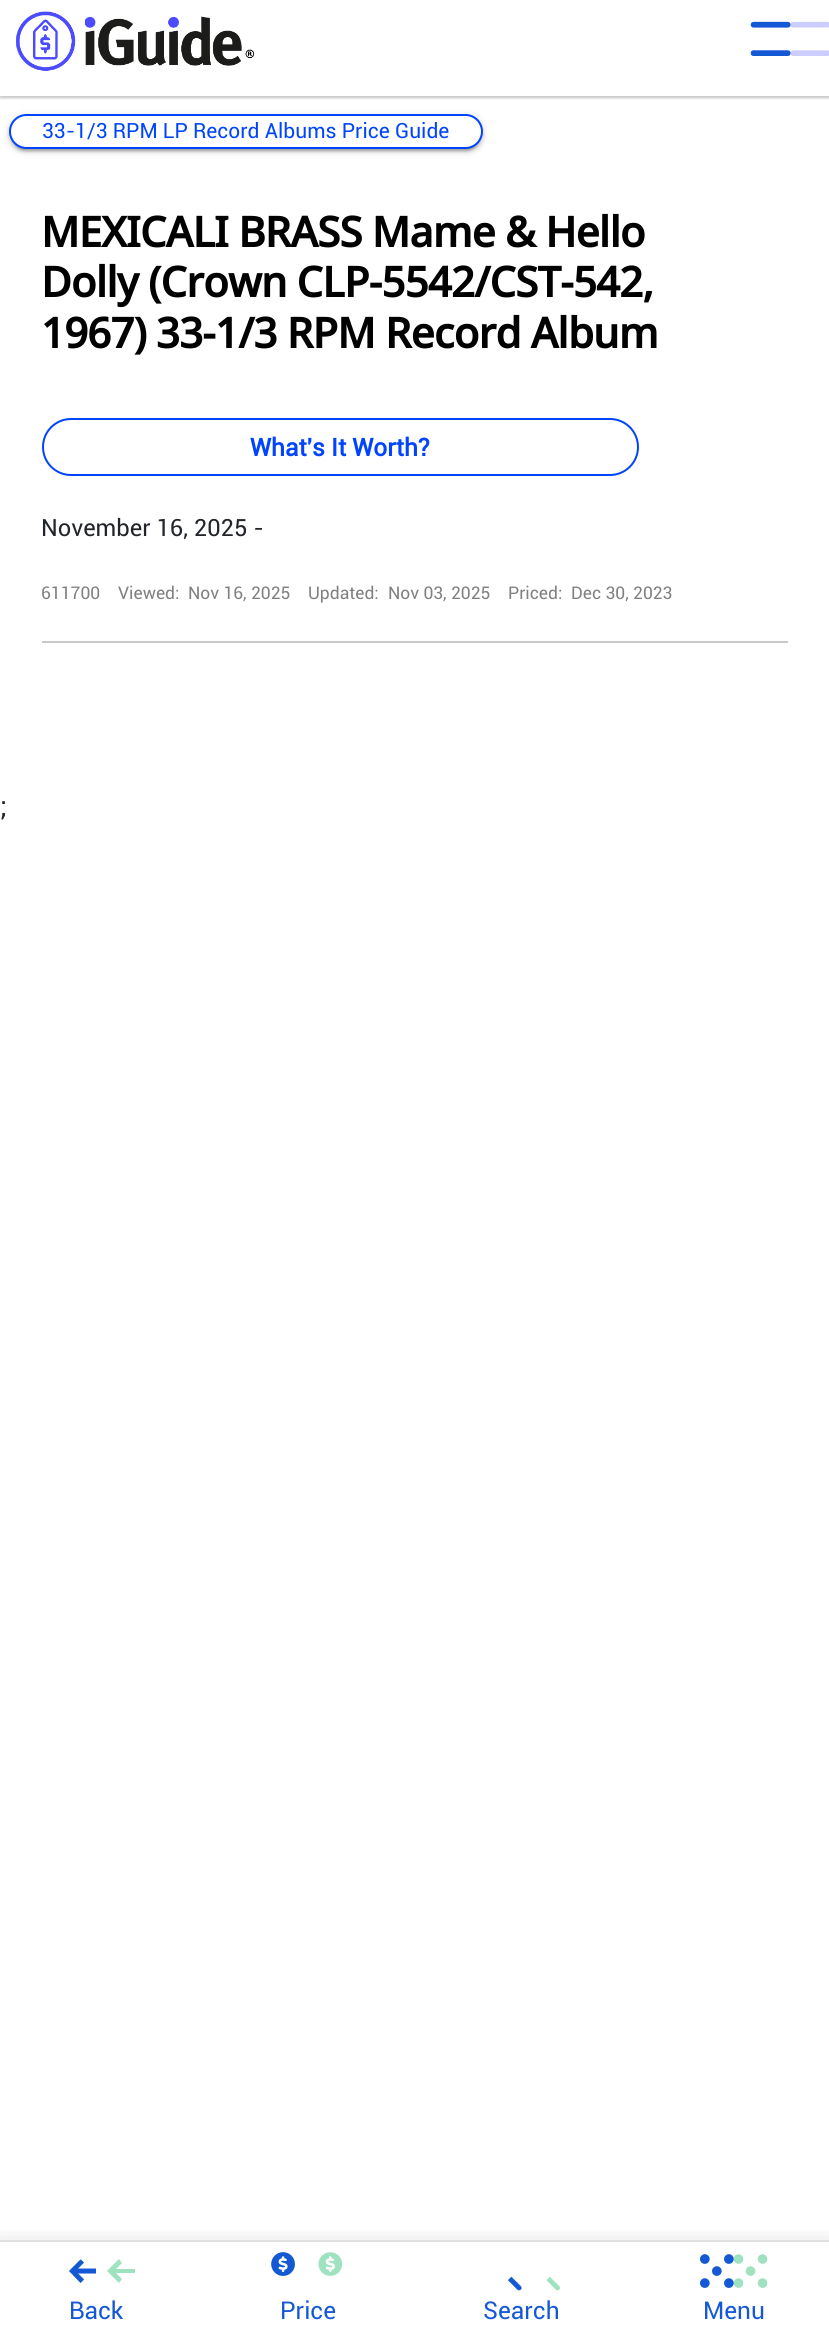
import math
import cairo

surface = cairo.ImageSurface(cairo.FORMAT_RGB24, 829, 2336)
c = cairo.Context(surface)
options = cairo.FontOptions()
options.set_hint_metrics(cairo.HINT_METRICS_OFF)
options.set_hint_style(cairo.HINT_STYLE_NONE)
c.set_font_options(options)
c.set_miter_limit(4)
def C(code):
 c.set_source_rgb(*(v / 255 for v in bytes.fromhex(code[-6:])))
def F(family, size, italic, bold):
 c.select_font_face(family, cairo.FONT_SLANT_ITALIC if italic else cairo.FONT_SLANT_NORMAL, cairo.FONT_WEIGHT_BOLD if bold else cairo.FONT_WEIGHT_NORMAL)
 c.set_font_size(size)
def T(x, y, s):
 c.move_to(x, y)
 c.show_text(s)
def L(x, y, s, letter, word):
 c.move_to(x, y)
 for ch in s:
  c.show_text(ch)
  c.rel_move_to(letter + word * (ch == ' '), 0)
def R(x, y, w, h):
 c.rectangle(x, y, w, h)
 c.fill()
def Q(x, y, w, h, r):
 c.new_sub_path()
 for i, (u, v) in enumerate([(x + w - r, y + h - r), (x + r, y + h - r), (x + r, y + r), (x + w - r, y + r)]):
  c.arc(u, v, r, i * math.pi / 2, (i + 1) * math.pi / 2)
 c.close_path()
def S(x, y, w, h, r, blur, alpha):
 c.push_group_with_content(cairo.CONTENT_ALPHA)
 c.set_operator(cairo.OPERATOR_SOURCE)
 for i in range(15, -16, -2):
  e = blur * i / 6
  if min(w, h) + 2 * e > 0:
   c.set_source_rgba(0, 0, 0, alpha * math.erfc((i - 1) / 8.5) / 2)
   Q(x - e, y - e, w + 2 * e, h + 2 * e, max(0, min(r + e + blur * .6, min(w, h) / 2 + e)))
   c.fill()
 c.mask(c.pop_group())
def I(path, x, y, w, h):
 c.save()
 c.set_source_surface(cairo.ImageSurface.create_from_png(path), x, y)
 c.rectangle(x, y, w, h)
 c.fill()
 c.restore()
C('ffffff')
c.paint()
F('Roboto',28,0,0)
C('212529')
T(0,816,';')
c.save()
c.rectangle(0,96,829,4)
c.clip()
C('000000')
S(0,2,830,96,0,2.5,.12)
c.restore()
c.save()
c.rectangle(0,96,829,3)
c.clip()
C('000000')
S(0,2,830,96,0,1,.14)
c.restore()
I('1.png',16,11,239,60)
I('2.png',750,21,79,35)
I('3.png',750,21,41,35)
C('000000')
S(9,116,474,35,17.5,4.5,.12)
S(9,117,474,35,17.5,2,.14)
S(12,123,468,28,14,1,.2)
C('ffffff')
Q(10,115,472,33,16.5)
c.fill_preserve()
C('0044fe')
c.stroke()
F('Roboto',21,0,0)
T(42,138,'33-1/3 RPM LP Record Albums Price Guide')
F('Noto Sans',42,0,1)
C('000000')
L(41,247,'MEXICALI BRASS Mame & Hello',-.85,0)
L(41,297,'Dolly (Crown CLP-5542/CST-542,',-.85,0)
L(41,348,'1967) 33-1/3 RPM Record Album',-.85,0)
Q(43,419,595,56,28)
C('0044fe')
c.stroke()
F('Roboto',24.5,0,1)
T(250,456,'What\'s It Worth?')
F('Roboto',23.75,0,0)
C('212529')
T(41,536,'November 16, 2025 -')
F('Roboto',17.5,0,0)
C('808080')
T(41,599,'611700')
T(118,599,'Viewed:')
T(188,599,'Nov 16, 2025')
T(308,599,'Updated:')
T(388,599,'Nov 03, 2025')
T(508,599,'Priced:')
T(571,599,'Dec 30, 2023')
C('c8c9ca')
R(42,641,746,2)
c.save()
c.rectangle(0,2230,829,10)
c.clip()
C('000000')
S(-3,2242,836,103,0,12,.12)
c.restore()
C('e0e0e0')
R(0,2240,829,2)
C('9fe2bf')
c.new_path()
c.move_to(81,2259)
c.line_to(69,2271)
c.line_to(81,2283)
c.line_to(84,2279)
c.line_to(78,2273)
c.line_to(96,2273)
c.line_to(96,2269)
c.line_to(78,2269)
c.line_to(84,2263)
c.close_path()
c.move_to(119,2259)
c.line_to(107,2271)
c.line_to(119,2283)
c.line_to(122,2279)
c.line_to(116,2273)
c.line_to(135,2273)
c.line_to(135,2269)
c.line_to(116,2269)
c.line_to(122,2263)
c.close_path()
c.fill()
C('1558d6')
c.new_path()
c.move_to(80.5,2259.5)
c.line_to(69,2271)
c.line_to(80.5,2283)
c.line_to(84,2279.5)
c.line_to(78,2273.5)
c.line_to(96,2273.5)
c.line_to(96,2268.5)
c.line_to(78,2268.5)
c.line_to(84,2262.5)
c.close_path()
c.fill()
F('Roboto',24.5,0,0)
T(69,2319,'Back')
I('4.png',271,2252,72,24)
I('5.png',271,2252,24,24)
T(280,2319,'Price')
I('6.png',508,2276,52,15)
I('7.png',508,2276,14,15)
T(483,2319,'Search')
I('8.png',700,2254,68,34)
I('9.png',700,2254,34,34)
T(703,2319,'Menu')
surface.write_to_png('o.png')
